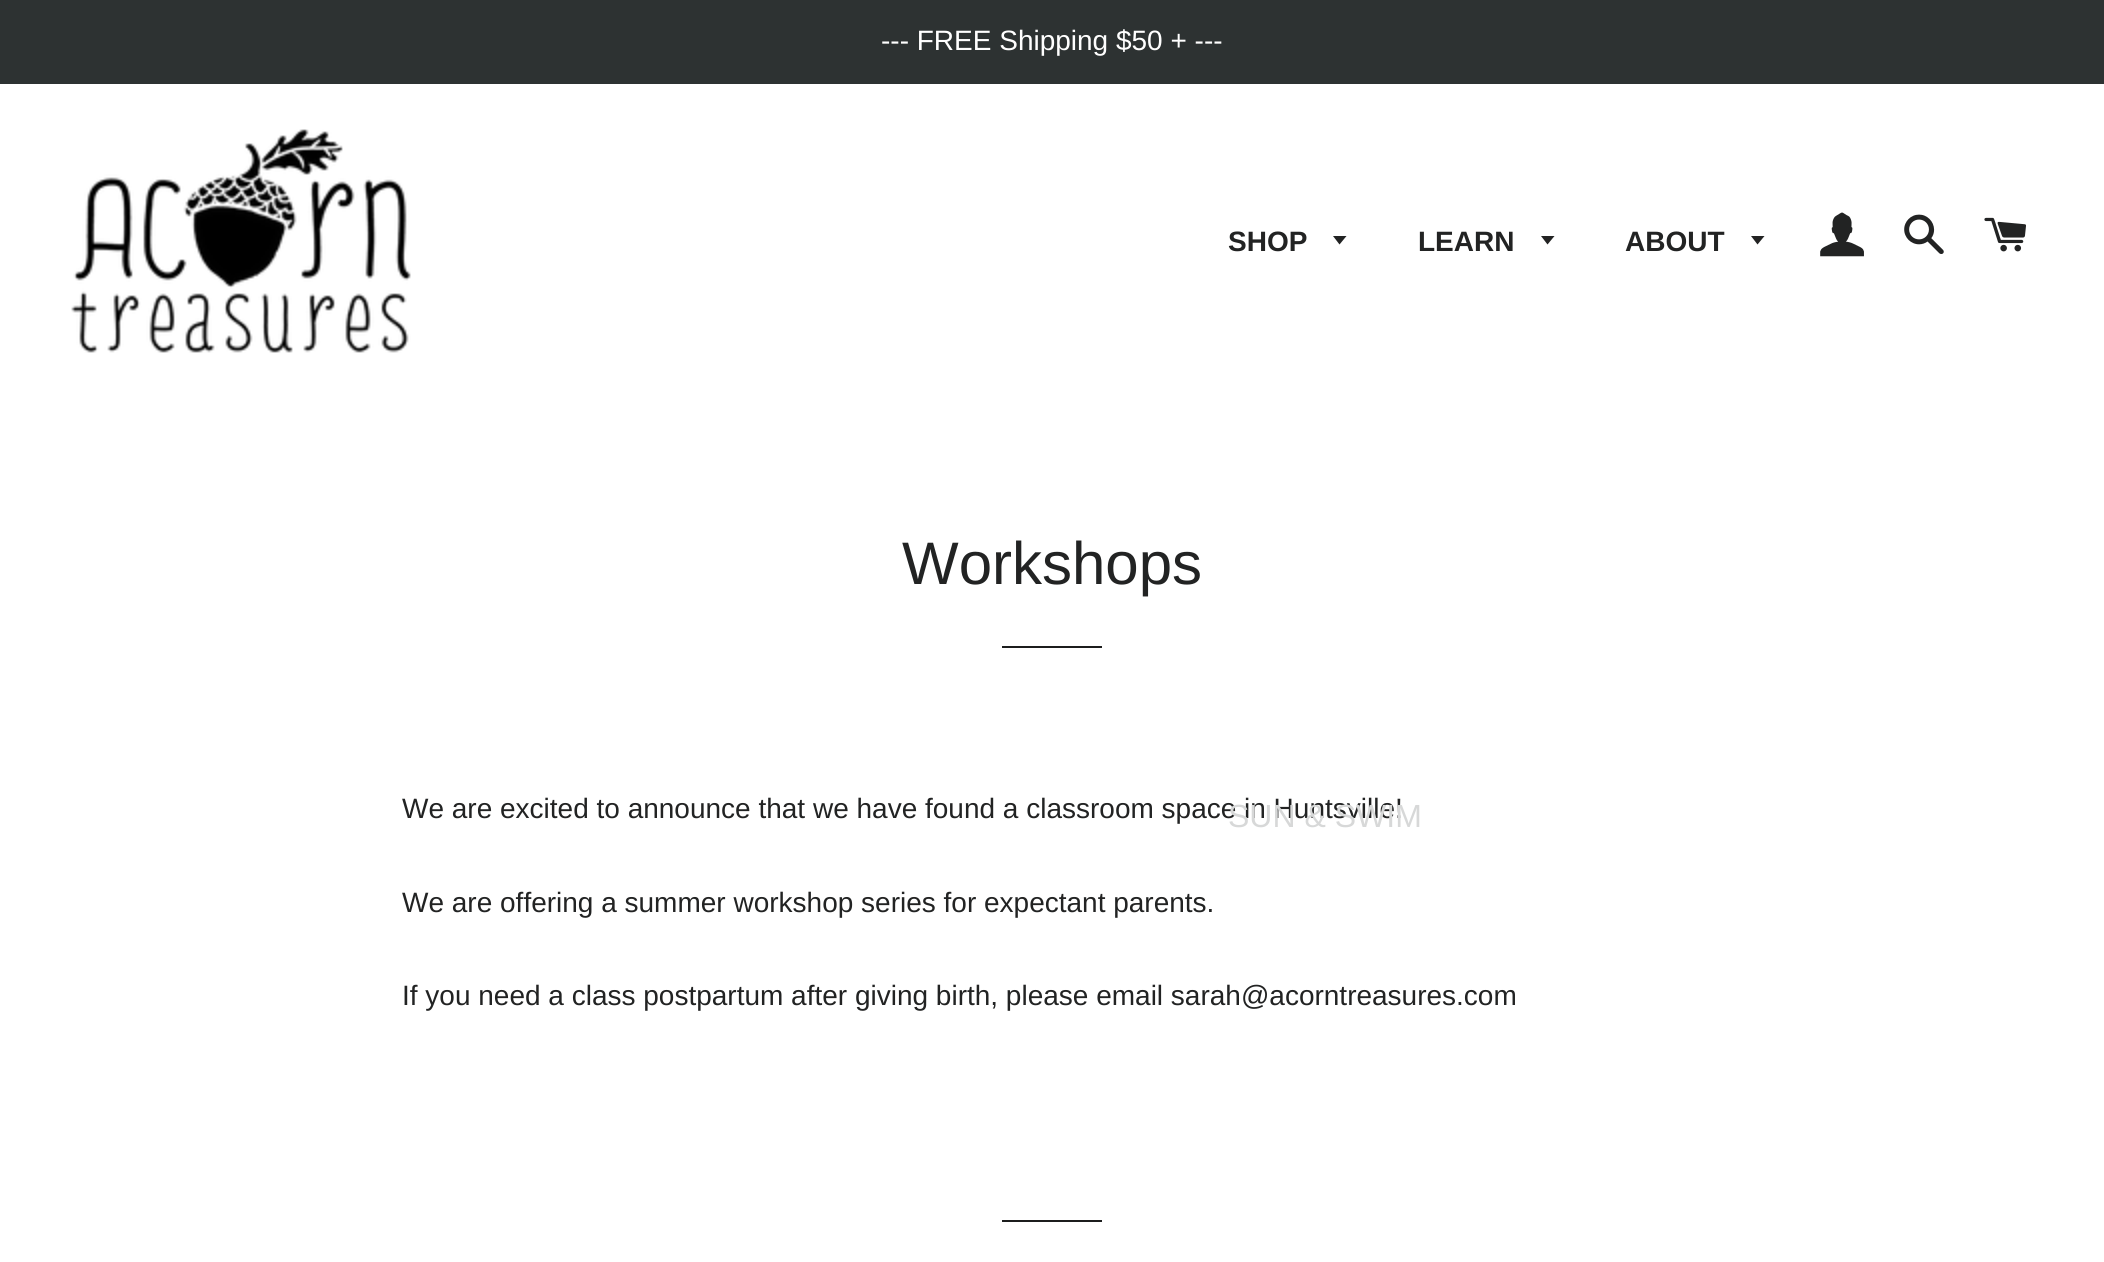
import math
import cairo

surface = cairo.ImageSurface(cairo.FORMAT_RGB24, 2104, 1262)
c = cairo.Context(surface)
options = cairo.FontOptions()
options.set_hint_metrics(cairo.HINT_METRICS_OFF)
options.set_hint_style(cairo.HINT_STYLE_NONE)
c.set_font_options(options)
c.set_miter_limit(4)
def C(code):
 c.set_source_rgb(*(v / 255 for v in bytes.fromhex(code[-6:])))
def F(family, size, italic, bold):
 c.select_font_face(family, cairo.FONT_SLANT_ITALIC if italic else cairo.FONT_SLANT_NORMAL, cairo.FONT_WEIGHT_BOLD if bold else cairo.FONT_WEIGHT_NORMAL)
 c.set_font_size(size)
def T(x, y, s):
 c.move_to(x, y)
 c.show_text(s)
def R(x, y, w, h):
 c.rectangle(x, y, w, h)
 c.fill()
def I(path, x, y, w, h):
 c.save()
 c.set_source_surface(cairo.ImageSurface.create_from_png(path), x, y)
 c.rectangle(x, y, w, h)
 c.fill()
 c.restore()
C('ffffff')
c.paint()
C('2d3232')
R(0,0,2104,84)
F('Liberation Sans',28,0,0)
C('ffffff')
T(881,50,'--- FREE Shipping $50 + ---')
I('1.png',71,129,340,224)
F('Liberation Sans',28,0,1)
C('222323')
T(1228,251,'SHOP')
c.new_path()
c.move_to(1333,236)
c.line_to(1339.5,244.5)
c.line_to(1346.5,236)
c.close_path()
c.fill()
F('Liberation Sans',28,0,0)
T(402,818,'We are excited to announce that we have found a classroom space in Huntsville!')
F('Liberation Sans',32,0,0)
C('d7d8d8')
T(1228,827,'SUN & SWIM')
F('Liberation Sans',28,0,1)
C('222323')
T(1418,251,'LEARN')
c.new_path()
c.move_to(1541,236)
c.line_to(1547.5,244.5)
c.line_to(1554.5,236)
c.close_path()
c.fill()
T(1625,251,'ABOUT')
c.new_path()
c.move_to(1751,236)
c.line_to(1757.5,244.5)
c.line_to(1764.5,236)
c.close_path()
c.fill()
I('2.png',1820,212,44,45)
I('3.png',1904,214,40,40)
I('4.png',1984,217,42,35)
F('Liberation Sans',60,0,0)
T(902,584,'Workshops')
C('1c1d1d')
R(1002,646,100,2)
F('Liberation Sans',28,0,0)
C('222323')
T(402,912,'We are offering a summer workshop series for expectant parents.')
T(402,1005,'If you need a class postpartum after giving birth, please email sarah@acorntreasures.com')
C('1c1d1d')
R(1002,1220,100,2)
surface.write_to_png('o.png')
